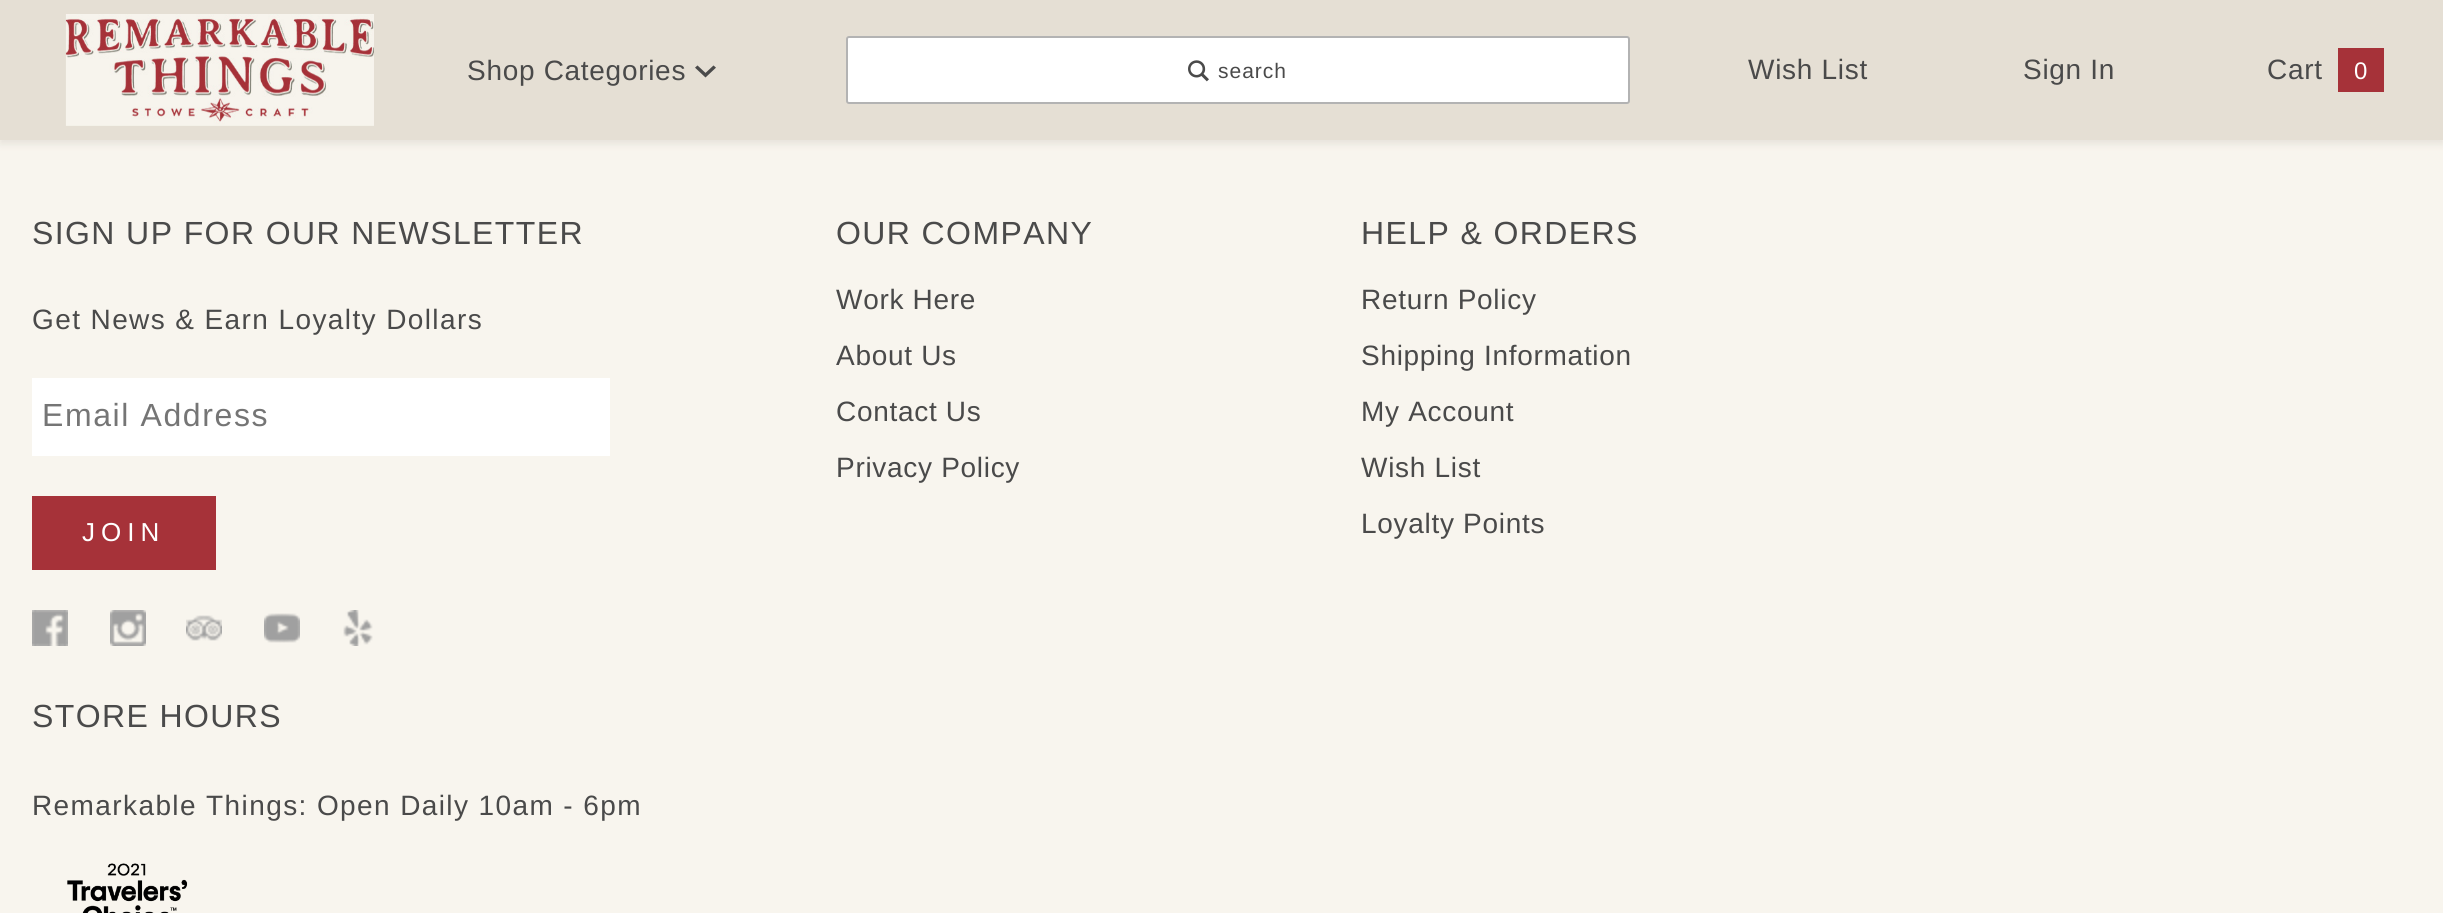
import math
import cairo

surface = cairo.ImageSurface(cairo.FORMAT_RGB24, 2443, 913)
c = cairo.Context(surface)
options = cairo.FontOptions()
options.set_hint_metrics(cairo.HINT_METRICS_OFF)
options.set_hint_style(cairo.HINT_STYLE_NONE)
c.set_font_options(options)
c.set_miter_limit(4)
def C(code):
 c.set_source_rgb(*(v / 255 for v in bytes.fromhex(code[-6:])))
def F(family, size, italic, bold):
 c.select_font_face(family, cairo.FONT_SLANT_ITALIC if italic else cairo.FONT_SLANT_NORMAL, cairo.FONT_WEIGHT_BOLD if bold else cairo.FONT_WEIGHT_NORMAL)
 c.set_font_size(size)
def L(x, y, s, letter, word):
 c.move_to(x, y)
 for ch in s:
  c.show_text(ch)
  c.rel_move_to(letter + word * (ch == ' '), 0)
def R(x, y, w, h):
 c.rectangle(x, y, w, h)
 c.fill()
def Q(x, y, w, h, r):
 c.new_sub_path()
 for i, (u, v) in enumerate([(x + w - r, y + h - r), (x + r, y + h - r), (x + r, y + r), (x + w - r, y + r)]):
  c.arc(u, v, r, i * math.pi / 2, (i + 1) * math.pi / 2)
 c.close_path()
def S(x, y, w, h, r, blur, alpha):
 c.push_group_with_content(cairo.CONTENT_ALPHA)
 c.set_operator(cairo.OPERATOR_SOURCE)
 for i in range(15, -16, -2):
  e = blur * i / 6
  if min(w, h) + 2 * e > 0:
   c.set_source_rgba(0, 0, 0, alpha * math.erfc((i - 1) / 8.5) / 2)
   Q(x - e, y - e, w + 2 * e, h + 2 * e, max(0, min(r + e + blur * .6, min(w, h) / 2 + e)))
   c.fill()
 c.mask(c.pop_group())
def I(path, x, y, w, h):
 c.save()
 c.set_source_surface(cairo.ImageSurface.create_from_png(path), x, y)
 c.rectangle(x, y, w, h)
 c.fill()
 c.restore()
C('f8f5ee')
c.paint()
C('807a6f')
S(0,4,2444,140,0,4,.15)
C('e5dfd4')
R(0,0,2443,140)
I('1.png',65,14,309,112)
F('Liberation Sans',28,0,0)
C('4a4a4a')
L(467,80,'Shop Categories',.7,0)
F('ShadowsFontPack',21,0,0)
L(695,80,'1',.7,0)
C('ffffff')
Q(847,37,782,66,2)
c.fill_preserve()
C('b3b3b3')
c.stroke()
I('2.png',1188,60,21,22)
F('Liberation Sans',21,0,0)
C('4a4a4a')
L(1218,78,'search',1,0)
F('Liberation Sans',28,0,0)
L(1748,79,'Wish List',.7,0)
L(2023,79,'Sign In',.7,0)
L(2267,79,'Cart',.7,0)
C('a63239')
R(2338,48,46,44)
F('Liberation Sans',24,0,0)
C('ffffff')
L(2354,79,'0',.7,0)
F('Liberation Sans',32,0,0)
C('4a4a4a')
L(32,244,'SIGN UP FOR OUR NEWSLETTER',1.4,0)
F('Liberation Sans',28,0,0)
L(32,329,'Get News & Earn Loyalty Dollars',1.4,0)
C('ffffff')
R(32,378,578,78)
F('Liberation Sans',32,0,0)
C('757575')
L(42,426,'Email Address',1.6,0)
C('a63239')
R(32,496,184,74)
F('Liberation Sans',26,0,0)
C('ffffff')
L(82,541,'JOIN',6,0)
I('3.png',32,610,36,36)
I('4.png',110,610,36,36)
I('5.png',186,615,36,26)
I('6.png',264,613,36,30)
I('7.png',343,610,30,36)
F('Liberation Sans',32,0,0)
C('4a4a4a')
L(32,727,'STORE HOURS',1.4,0)
F('Liberation Sans',28,0,0)
L(32,815,'Remarkable Things: Open Daily 10am - 6pm',1.4,0)
I('8.png',67,863,121,50)
F('Liberation Sans',32,0,0)
L(836,244,'OUR COMPANY',1.4,0)
F('Liberation Sans',28,0,0)
L(836,309,'Work Here',.7,0)
L(836,365,'About Us',.7,0)
L(836,421,'Contact Us',.7,0)
L(836,477,'Privacy Policy',.7,0)
F('Liberation Sans',32,0,0)
L(1361,244,'HELP & ORDERS',1.4,0)
F('Liberation Sans',28,0,0)
L(1361,309,'Return Policy',.7,0)
L(1361,365,'Shipping Information',.7,0)
L(1361,421,'My Account',.7,0)
L(1361,477,'Wish List',.7,0)
L(1361,533,'Loyalty Points',.7,0)
surface.write_to_png('o.png')
